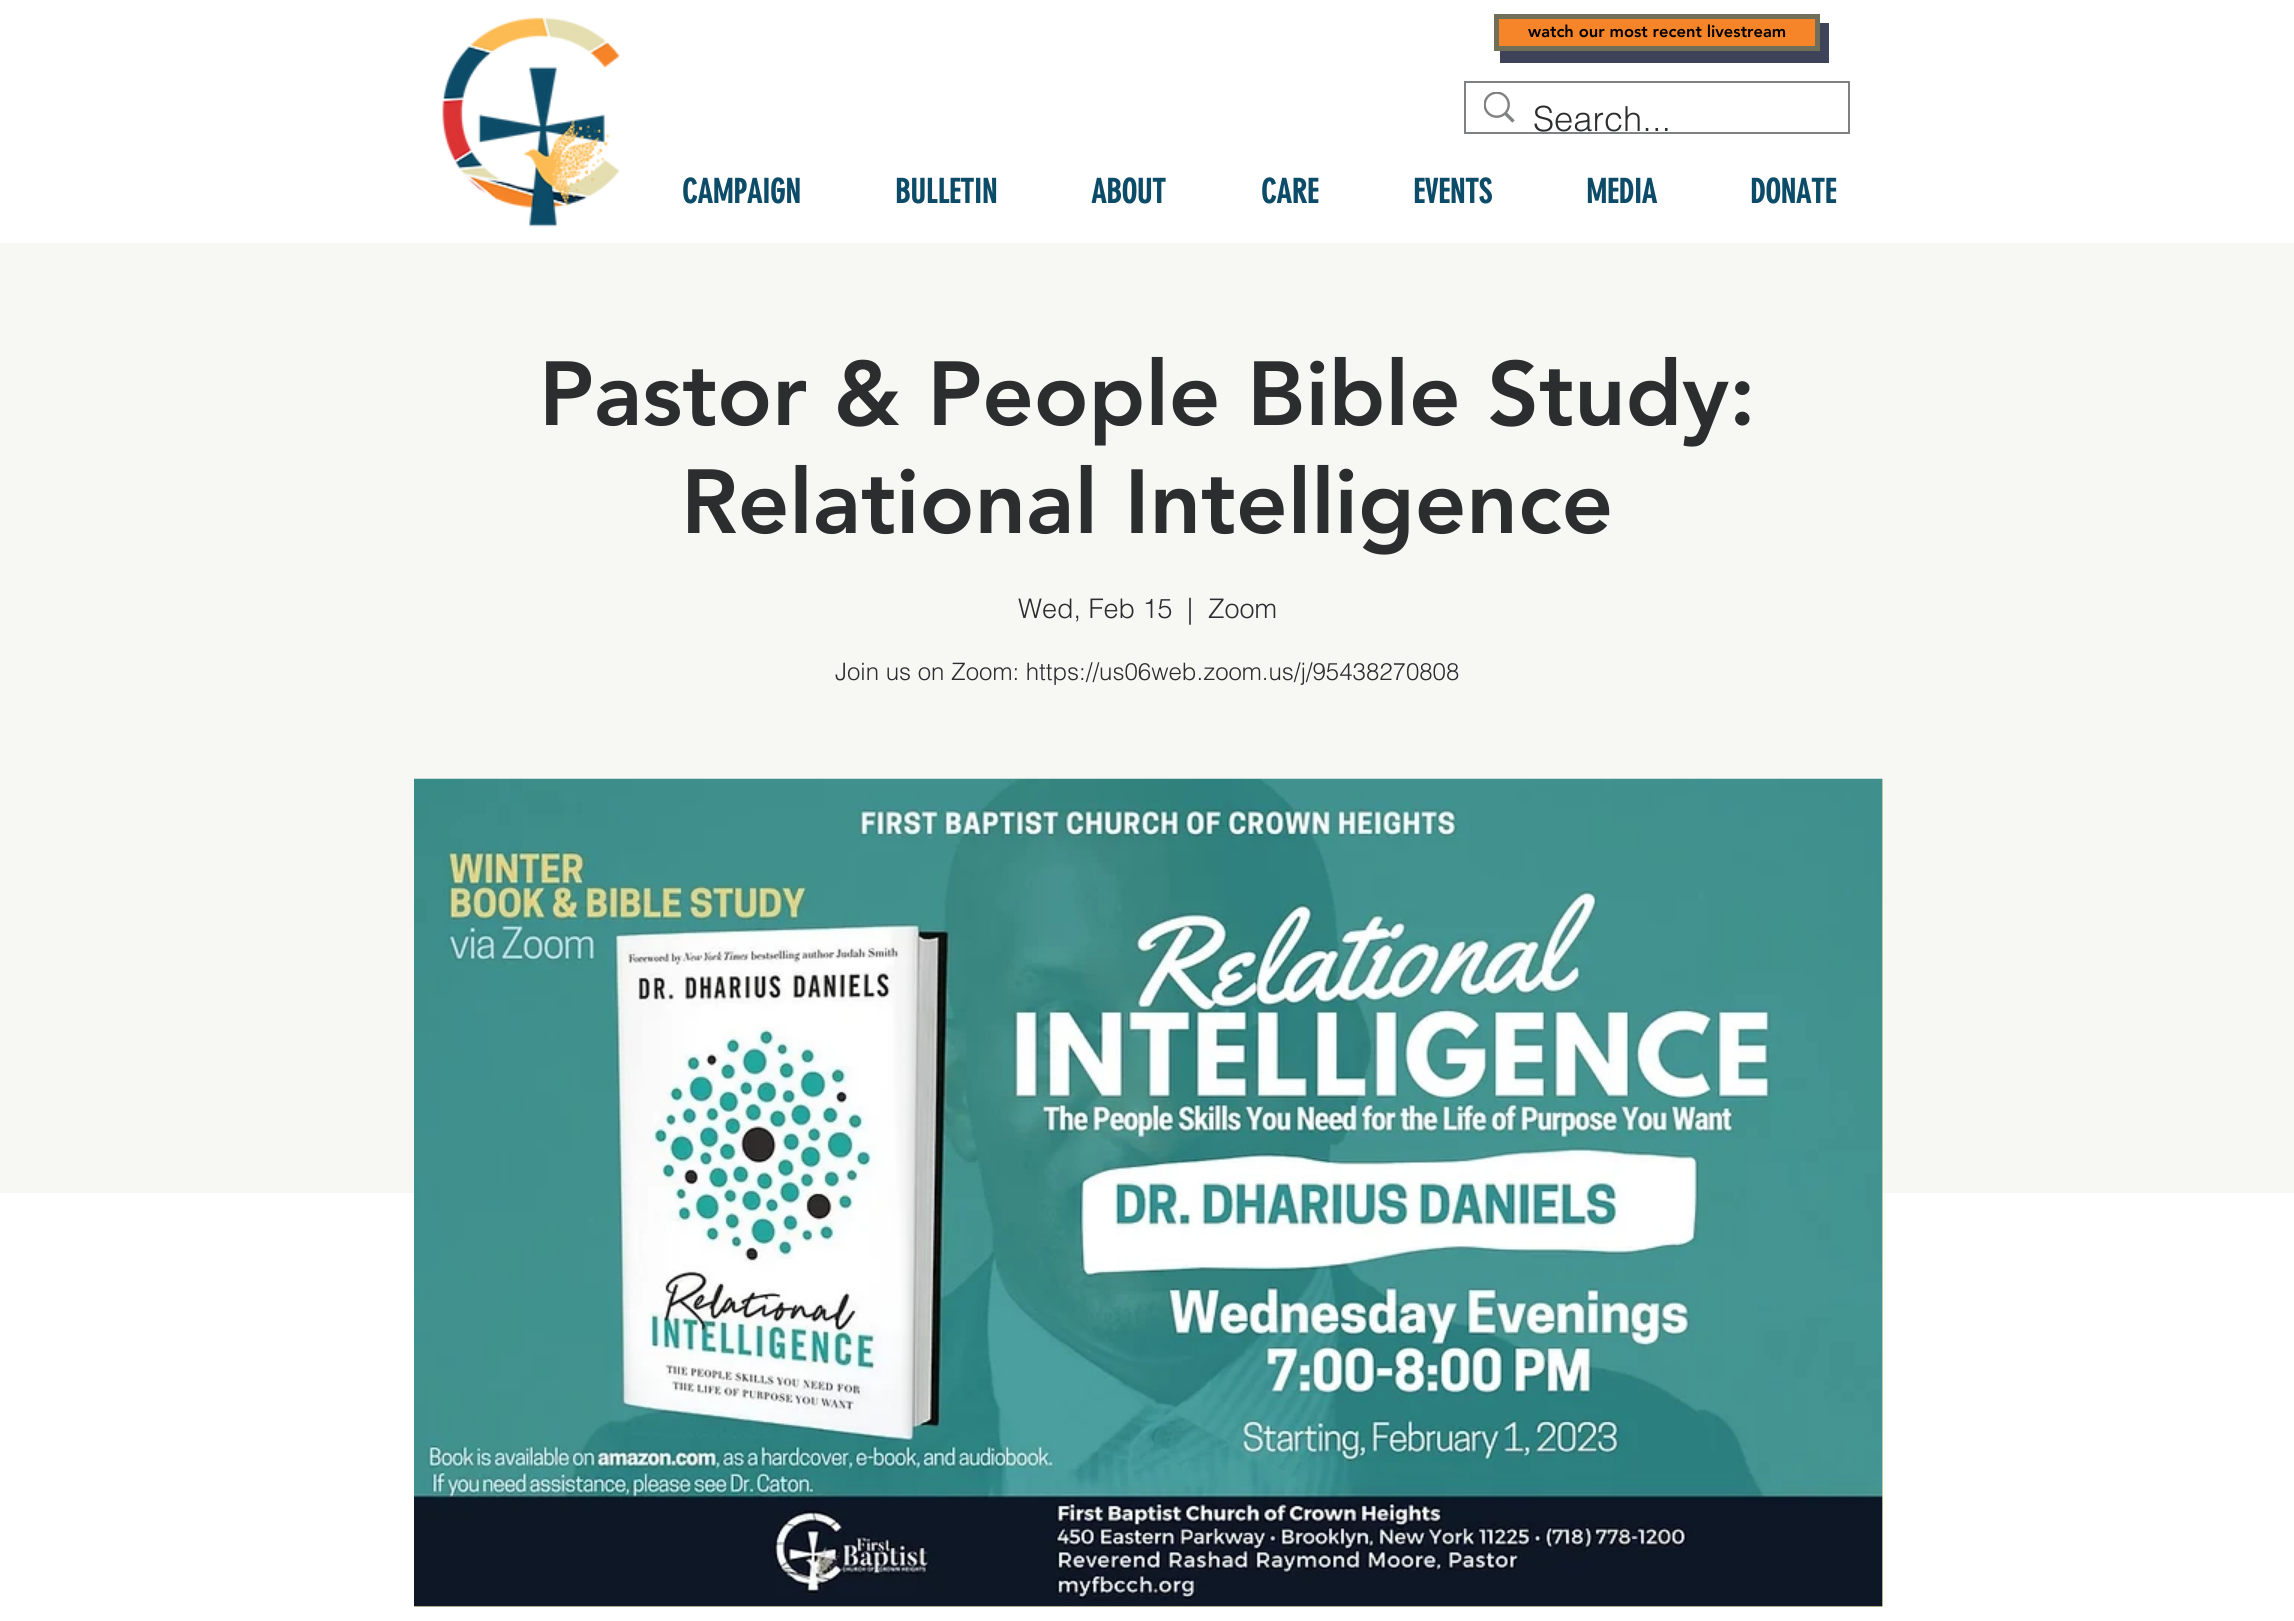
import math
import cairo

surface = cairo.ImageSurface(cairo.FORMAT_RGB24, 2294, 1621)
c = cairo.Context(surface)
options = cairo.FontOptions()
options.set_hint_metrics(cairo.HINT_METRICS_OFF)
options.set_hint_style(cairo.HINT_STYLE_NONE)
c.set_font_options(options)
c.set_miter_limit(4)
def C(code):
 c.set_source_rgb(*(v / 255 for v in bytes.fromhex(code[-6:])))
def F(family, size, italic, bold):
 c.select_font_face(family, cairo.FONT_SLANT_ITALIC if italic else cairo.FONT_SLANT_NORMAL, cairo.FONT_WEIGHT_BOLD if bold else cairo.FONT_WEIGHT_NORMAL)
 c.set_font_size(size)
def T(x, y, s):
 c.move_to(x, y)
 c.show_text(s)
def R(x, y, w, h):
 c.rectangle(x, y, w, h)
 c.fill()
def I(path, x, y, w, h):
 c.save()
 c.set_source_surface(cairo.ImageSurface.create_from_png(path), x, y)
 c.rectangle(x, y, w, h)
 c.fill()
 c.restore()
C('ffffff')
c.paint()
I('1.png',442,17,178,210)
C('3f4359')
c.new_path()
c.move_to(1500,51)
c.line_to(1500,63)
c.line_to(1829,63)
c.line_to(1829,23)
c.line_to(1820,23)
c.line_to(1820,51)
c.close_path()
c.fill()
C('f68428')
c.rectangle(1496.5,16.5,321,32)
c.fill_preserve()
C('726f59')
c.set_line_width(5)
c.stroke()
F('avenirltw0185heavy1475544 Black',16.5,0,0)
C('000000')
T(1528,37,'watch our most recent livestream')
c.rectangle(1465,82,384,51)
C('808182')
c.set_line_width(2)
c.stroke()
I('2.png',1484,92,31,31)
F('helvetica Light',34.5,0,0)
C('2c2d2e')
T(1533,131,'Search...')
F('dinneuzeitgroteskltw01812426',33,0,1)
C('0d4c68')
T(682,203,'CAMPAIGN')
T(895,203,'BULLETIN')
T(1091,203,'ABOUT')
T(1261,203,'CARE')
T(1413,203,'EVENTS')
T(1586,203,'MEDIA')
T(1750,203,'DONATE')
C('f7f7f4')
R(0,243,2294,950)
F('avenirltw0185heavy1475544 Black',90,0,0)
C('2c2d2e')
T(539,425,'Pastor & People Bible Study:')
T(681,533,'Relational Intelligence')
F('helvetica Light',27,0,0)
T(1018,618,'Wed, Feb 15')
T(1187,618,'|')
T(1208,618,'Zoom')
F('helvetica Light',24,0,0)
T(835,680,'Join us on Zoom: https://us06web.zoom.us/j/95438270808')
C('e4deb1')
R(414,779,1469,828)
I('3.png',414,778,1469,829)
surface.write_to_png('o.png')
